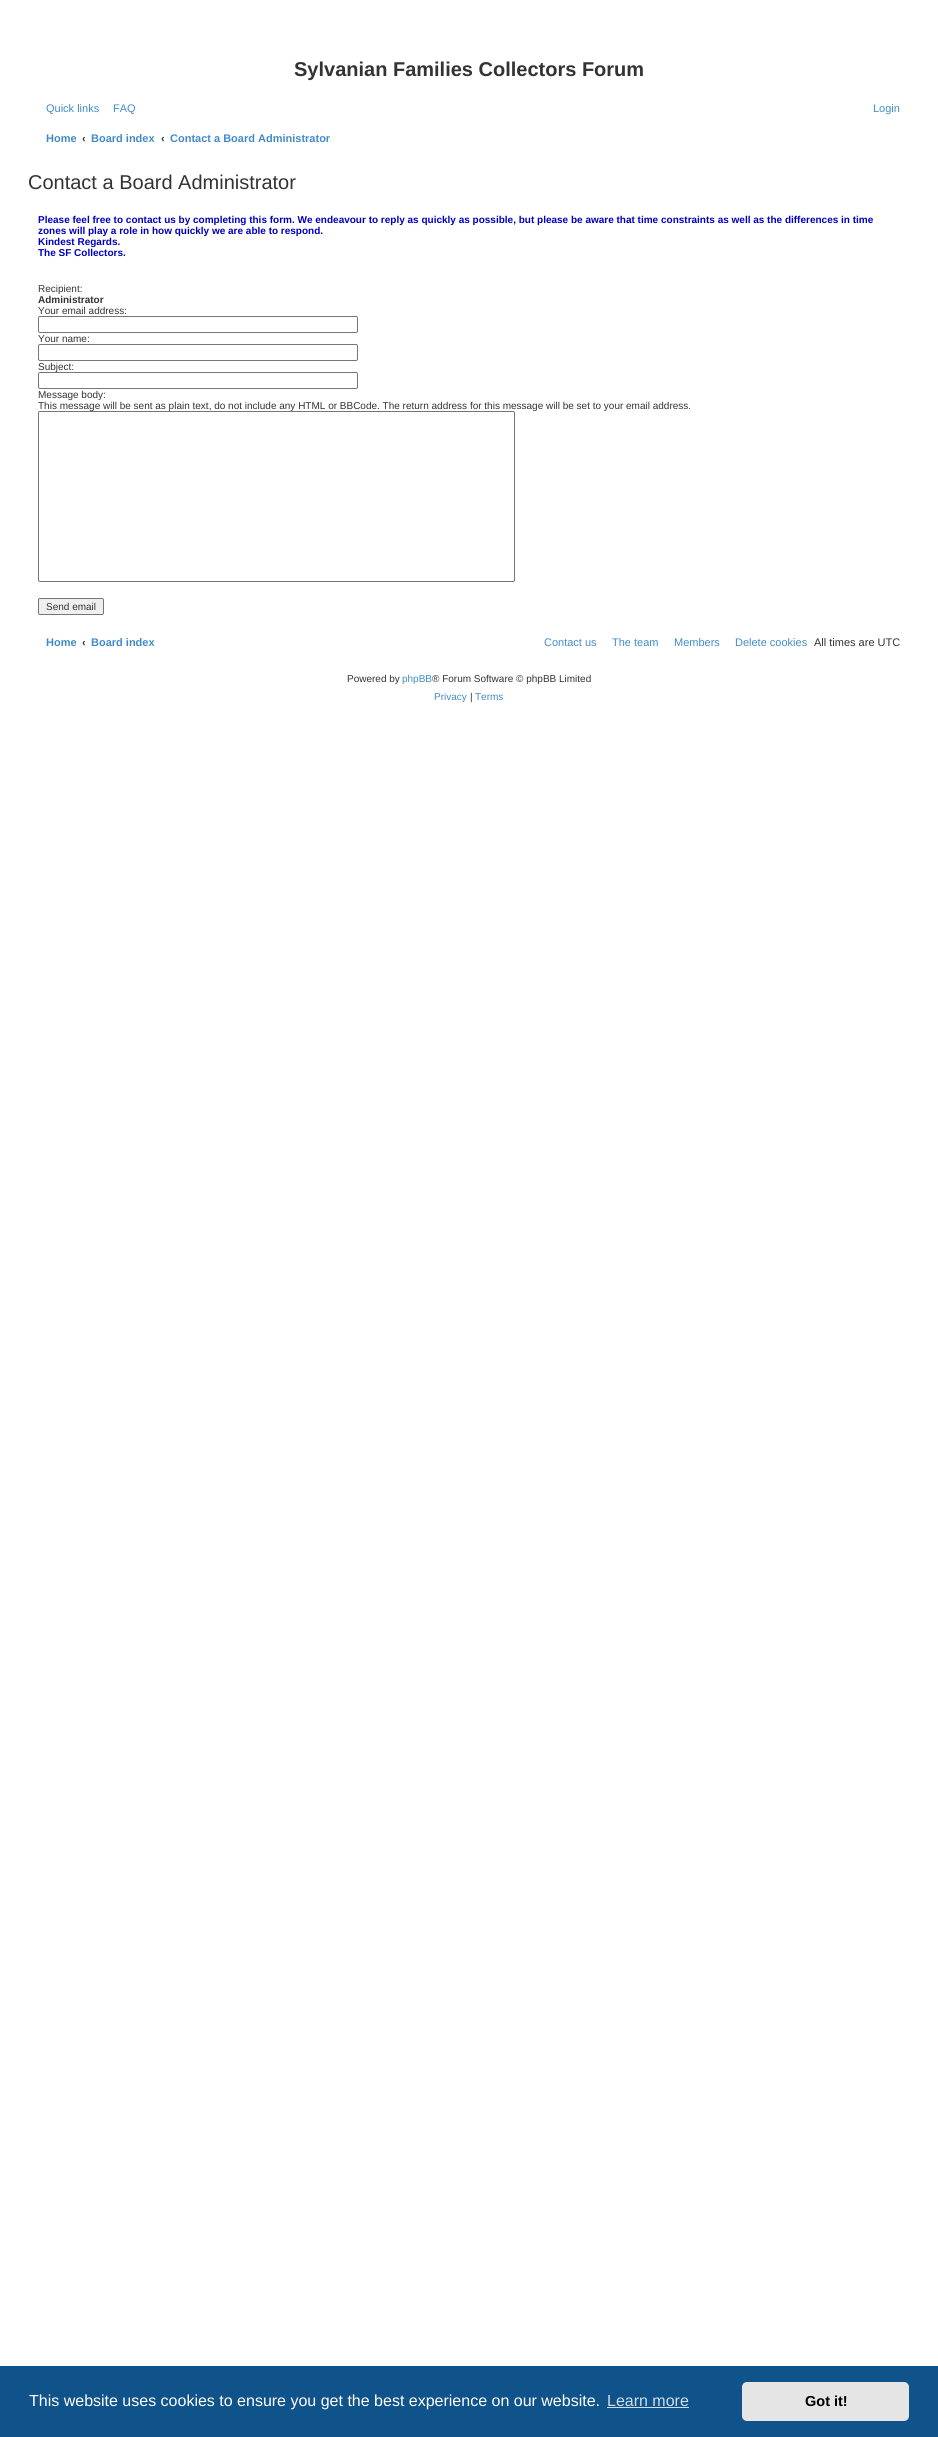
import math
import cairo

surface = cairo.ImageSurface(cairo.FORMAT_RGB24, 938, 2437)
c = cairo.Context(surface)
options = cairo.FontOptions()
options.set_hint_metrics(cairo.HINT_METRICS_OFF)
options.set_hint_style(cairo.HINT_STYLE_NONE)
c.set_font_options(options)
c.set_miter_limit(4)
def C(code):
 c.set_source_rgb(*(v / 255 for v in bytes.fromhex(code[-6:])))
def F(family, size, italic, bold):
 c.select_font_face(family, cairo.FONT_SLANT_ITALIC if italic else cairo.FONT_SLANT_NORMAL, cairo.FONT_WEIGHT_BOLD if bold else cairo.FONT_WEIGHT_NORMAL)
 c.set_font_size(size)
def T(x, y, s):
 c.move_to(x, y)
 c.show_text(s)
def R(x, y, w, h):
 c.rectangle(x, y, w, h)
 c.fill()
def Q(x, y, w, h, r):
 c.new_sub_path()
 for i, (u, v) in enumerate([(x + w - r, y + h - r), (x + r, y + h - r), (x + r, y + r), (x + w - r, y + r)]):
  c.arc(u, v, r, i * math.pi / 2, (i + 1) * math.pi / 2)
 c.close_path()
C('ffffff')
c.paint()
F('Liberation Sans',20,0,1)
C('333333')
T(294,76,'Sylvanian Families Collectors Forum')
F('Liberation Sans',11,0,0)
C('428bca')
T(46,112,'Quick links')
T(113,112,'FAQ')
T(873,112,'Login')
F('Liberation Sans',11,0,1)
T(46,142,'Home')
C('333333')
T(82,142,'‹')
C('428bca')
T(91,142,'Board index')
C('333333')
T(161,142,'‹')
C('428bca')
T(170,142,'Contact a Board Administrator')
F('Liberation Sans',20,0,0)
C('333333')
T(28,189,'Contact a Board Administrator')
F('Liberation Sans',10,0,1)
C('0000bf')
T(38,223,'Please feel free to contact us by completing this form. We endeavour to reply as quickly as possible, but please be aware that time constraints as well as the differences in time')
T(38,234,'zones will play a role in how quickly we are able to respond.')
T(38,245,'Kindest Regards.')
T(38,256,'The SF Collectors.')
F('Liberation Sans',10,0,0)
C('333333')
T(38,292,'Recipient:')
F('Liberation Sans',10,0,1)
T(38,303,'Administrator')
F('Liberation Sans',10,0,0)
T(38,314,'Your email address:')
Q(38.5,316.5,319,16,1.5)
C('767676')
c.set_line_width(1)
c.stroke()
C('333333')
T(38,342,'Your name:')
Q(38.5,344.5,319,16,1.5)
C('767676')
c.stroke()
C('333333')
T(38,370,'Subject:')
C('ffffff')
Q(38.5,372.5,319,16,1.5)
c.fill_preserve()
C('767676')
c.stroke()
C('333333')
T(38,398,'Message body:')
T(38,409,'This message will be sent as plain text, do not include any HTML or BBCode. The return address for this message will be set to your email address.')
C('ffffff')
Q(38.5,411.5,476,170,1.5)
c.fill_preserve()
C('767676')
c.stroke()
C('efefef')
Q(38.5,598.5,65,16,1.5)
c.fill_preserve()
C('767676')
c.stroke()
C('333333')
T(46,610,'Send email')
F('Liberation Sans',11,0,1)
C('428bca')
T(46,646,'Home')
C('333333')
T(82,646,'‹')
C('428bca')
T(91,646,'Board index')
F('Liberation Sans',11,0,0)
T(544,646,'Contact us')
T(612,646,'The team')
T(674,646,'Members')
T(735,646,'Delete cookies')
C('333333')
T(814,646,'All times are UTC')
F('Liberation Sans',10,0,0)
T(347,682,'Powered by')
C('428bca')
T(402,682,'phpBB')
C('333333')
T(432,682,'® Forum Software © phpBB Limited')
C('428bca')
T(434,700,'Privacy')
C('333333')
T(470,700,'|')
C('428bca')
T(475,700,'Terms')
C('0f538a')
R(0,2366,938,71)
F('Liberation Sans',16,0,0)
C('ffffff')
T(29,2406,'This website uses cookies to ensure you get the best experience on our website.')
C('cfdde8')
T(607,2406,'Learn more')
R(607,2407,82,1)
C('e5e5e5')
Q(742,2382,167,39,5)
c.fill()
F('Liberation Sans',14.5,0,1)
C('000000')
T(805,2406,'Got it!')
surface.write_to_png('o.png')
